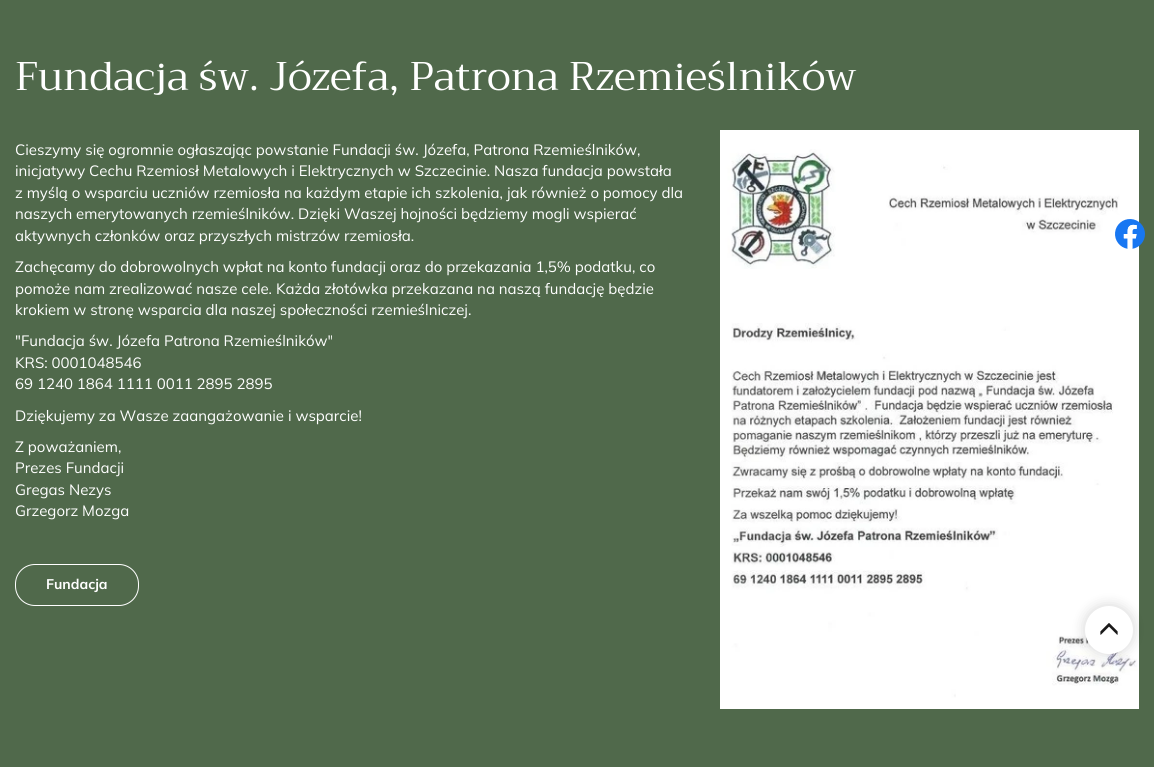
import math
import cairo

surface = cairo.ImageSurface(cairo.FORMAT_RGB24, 1154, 767)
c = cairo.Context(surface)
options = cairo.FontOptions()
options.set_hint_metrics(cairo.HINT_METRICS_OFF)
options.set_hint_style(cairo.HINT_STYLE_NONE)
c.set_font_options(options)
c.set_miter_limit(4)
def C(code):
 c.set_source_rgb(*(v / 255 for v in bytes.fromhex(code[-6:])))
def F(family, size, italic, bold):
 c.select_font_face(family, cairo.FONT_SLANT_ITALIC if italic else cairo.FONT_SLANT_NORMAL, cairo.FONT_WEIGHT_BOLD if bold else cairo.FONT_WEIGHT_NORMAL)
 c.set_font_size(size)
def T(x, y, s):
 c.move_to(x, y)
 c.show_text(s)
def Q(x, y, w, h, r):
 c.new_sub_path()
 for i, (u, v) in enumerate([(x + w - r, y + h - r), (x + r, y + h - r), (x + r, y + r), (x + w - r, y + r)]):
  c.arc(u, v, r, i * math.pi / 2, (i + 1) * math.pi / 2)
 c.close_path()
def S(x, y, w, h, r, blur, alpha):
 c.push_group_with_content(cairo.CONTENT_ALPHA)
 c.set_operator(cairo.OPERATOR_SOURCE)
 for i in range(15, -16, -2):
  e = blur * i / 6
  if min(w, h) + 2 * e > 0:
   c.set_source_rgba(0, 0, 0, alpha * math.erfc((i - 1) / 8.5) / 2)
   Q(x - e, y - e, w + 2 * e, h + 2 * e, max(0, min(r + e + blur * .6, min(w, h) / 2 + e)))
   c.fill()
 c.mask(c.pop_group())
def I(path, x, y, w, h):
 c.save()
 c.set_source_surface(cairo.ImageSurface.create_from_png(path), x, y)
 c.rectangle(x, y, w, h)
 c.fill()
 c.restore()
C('50694b')
c.paint()
F('Trirong',40,0,0)
C('ffffff')
T(15,90,'Fundacja św. Józefa, Patrona Rzemieślników')
F('Mulish',15,0,0)
T(15,155,'Cieszymy się ogromnie ogłaszając powstanie Fundacji św. Józefa, Patrona Rzemieślników,')
T(15,176,'inicjatywy Cechu Rzemiosł Metalowych i Elektrycznych w Szczecinie. Nasza fundacja powstała')
T(15,198,'z myślą o wsparciu uczniów rzemiosła na każdym etapie ich szkolenia, jak również o pomocy dla')
T(15,219,'naszych emerytowanych rzemieślników. Dzięki Waszej hojności będziemy mogli wspierać')
T(15,241,'aktywnych członków oraz przyszłych mistrzów rzemiosła.')
I('1.png',720,130,419,579)
T(15,272,'Zachęcamy do dobrowolnych wpłat na konto fundacji oraz do przekazania 1,5% podatku, co')
T(15,294,'pomoże nam zrealizować nasze cele. Każda złotówka przekazana na naszą fundację będzie')
T(15,315,'krokiem w stronę wsparcia dla naszej społeczności rzemieślniczej.')
T(15,346,'"Fundacja św. Józefa Patrona Rzemieślników"')
T(15,368,'KRS: 0001048546')
T(15,389,'69 1240 1864 1111 0011 2895 2895')
T(15,421,'Dziękujemy za Wasze zaangażowanie i wsparcie!')
T(15,452,'Z poważaniem,')
T(15,473,'Prezes Fundacji')
T(15,495,'Gregas Nezys')
T(15,516,'Grzegorz Mozga')
Q(15.5,564.5,123,41,19.5)
c.set_line_width(1)
c.stroke()
F('Mulish',14,0,1)
T(46,589,'Fundacja')
I('2.png',1115,219,30,30)
C('000000')
S(1084,605,50,49,24.5,6.5,.15)
C('ffffff')
c.arc(1109,630,24,0,2 * math.pi)
c.fill()
I('3.png',1100,623,18,12)
surface.write_to_png('o.png')
